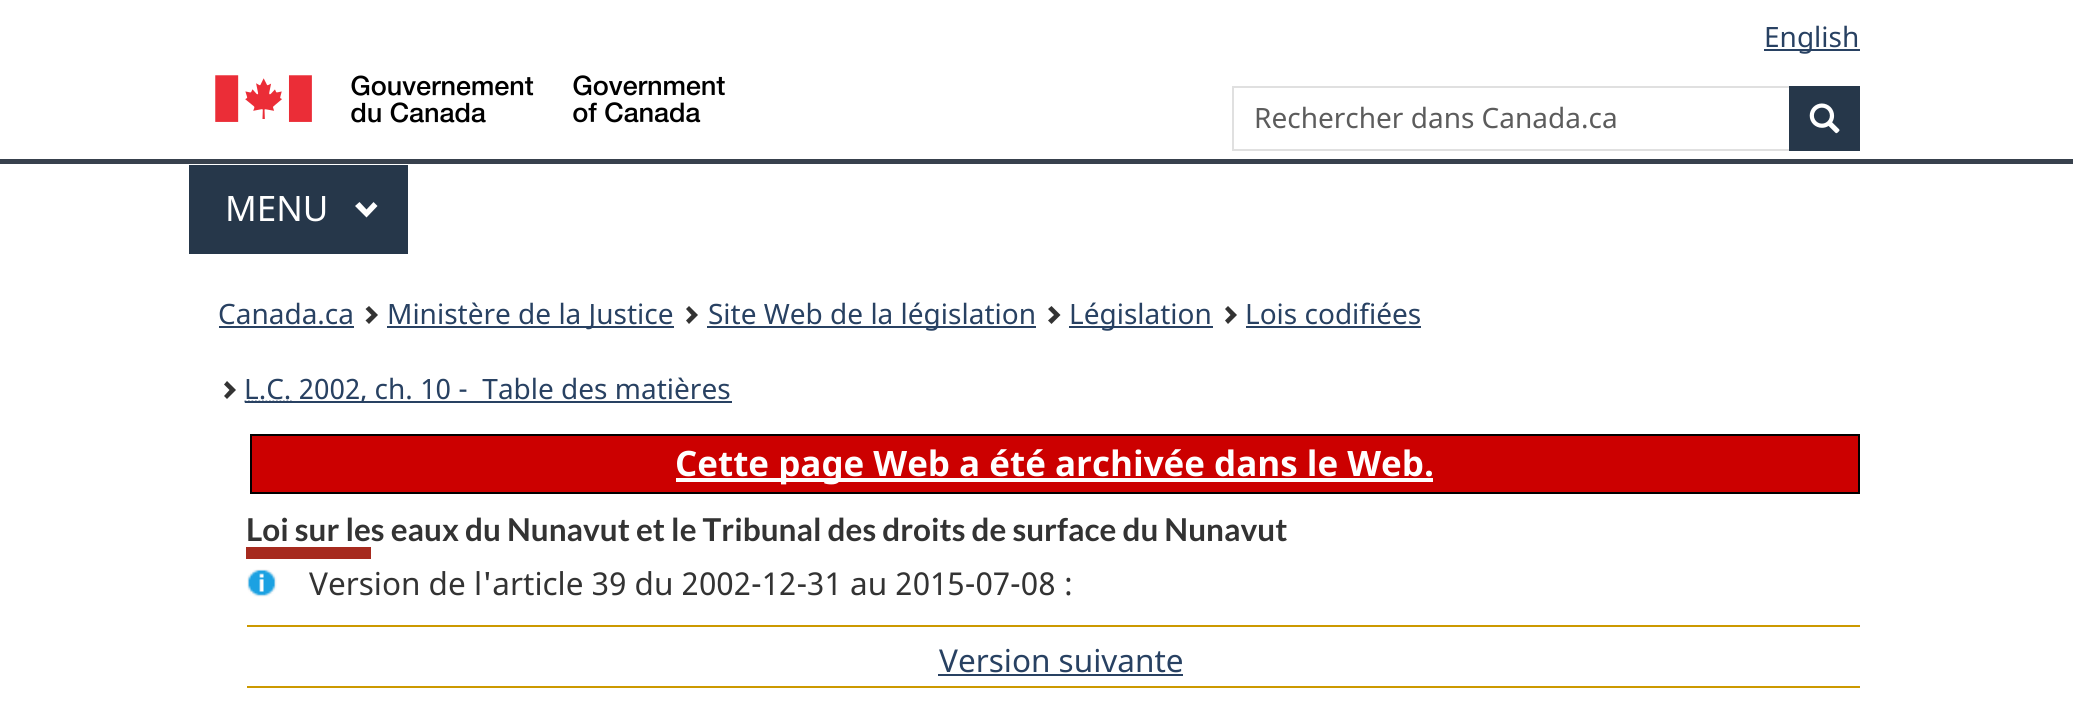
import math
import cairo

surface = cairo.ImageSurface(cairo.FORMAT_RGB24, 2073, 704)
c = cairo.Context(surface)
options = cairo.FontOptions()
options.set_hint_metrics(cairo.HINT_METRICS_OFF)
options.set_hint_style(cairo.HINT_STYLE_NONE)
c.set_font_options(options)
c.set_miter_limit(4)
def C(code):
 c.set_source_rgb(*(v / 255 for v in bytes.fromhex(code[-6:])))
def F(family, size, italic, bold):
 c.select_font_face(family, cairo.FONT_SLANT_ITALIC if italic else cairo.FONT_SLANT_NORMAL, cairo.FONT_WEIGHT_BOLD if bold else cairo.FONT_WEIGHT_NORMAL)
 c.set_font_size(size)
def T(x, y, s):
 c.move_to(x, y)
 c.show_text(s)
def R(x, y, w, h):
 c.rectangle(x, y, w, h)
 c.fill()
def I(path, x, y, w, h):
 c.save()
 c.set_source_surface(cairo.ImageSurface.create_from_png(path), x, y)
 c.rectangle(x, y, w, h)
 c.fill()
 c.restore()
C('ffffff')
c.paint()
C('284162')
R(1764,49,96,2)
F('Noto Sans',28,0,0)
T(1764,47,'English')
I('1.png',215,75,510,48)
c.rectangle(1233,87,626,63)
C('e0e0e0')
c.stroke()
C('5c5c5c')
T(1254,128,'Rechercher dans Canada.ca')
C('26374a')
R(1789,86,71,65)
I('2.png',1809,103,31,31)
C('38414d')
R(0,159,2073,5)
C('26374a')
R(189,165,219,89)
F('Noto Sans',35,0,0)
C('ffffff')
T(225,221,'MENU')
c.new_path()
c.move_to(377.5,206)
c.line_to(366.5,217.5)
c.line_to(355,206)
c.line_to(359.5,202)
c.line_to(366.5,209.5)
c.line_to(373.5,202)
c.close_path()
c.fill()
F('Noto Sans',28,0,0)
C('284162')
T(218,324,'Canada.ca')
R(219,326,135,2)
C('333333')
c.new_path()
c.move_to(378,315)
c.line_to(369,324)
c.line_to(365.5,320.5)
c.line_to(371.5,315)
c.line_to(365.5,309)
c.line_to(369,306)
c.close_path()
c.fill()
C('284162')
R(387,326,287,2)
T(387,324,'Ministère de la Justice')
C('333333')
c.new_path()
c.move_to(698,315)
c.line_to(689,324)
c.line_to(686,320.5)
c.line_to(691.5,315)
c.line_to(686,309)
c.line_to(689,306)
c.close_path()
c.fill()
C('284162')
R(707,326,329,2)
T(708,324,'Site Web de la législation')
C('333333')
c.new_path()
c.move_to(1060.5,315)
c.line_to(1051.5,324)
c.line_to(1048,320.5)
c.line_to(1054,315)
c.line_to(1048,309)
c.line_to(1051.5,306)
c.close_path()
c.fill()
C('284162')
R(1069,326,144,2)
T(1069,324,'Législation')
C('333333')
c.new_path()
c.move_to(1237,315)
c.line_to(1228,324)
c.line_to(1225,320.5)
c.line_to(1230.5,315)
c.line_to(1225,309)
c.line_to(1228,306)
c.close_path()
c.fill()
C('284162')
T(1245,324,'Lois codifiées')
R(1246,326,175,2)
C('333333')
c.new_path()
c.move_to(236,390)
c.line_to(227,399)
c.line_to(224,396)
c.line_to(229.5,390)
c.line_to(224,384.5)
c.line_to(227,381)
c.close_path()
c.fill()
c.new_path()
c.move_to(244.5,401.5)
c.line_to(292,401.5)
C('284162')
c.set_line_width(1.8)
c.set_dash([1.75,1.75])
c.stroke()
R(245,401,487,2)
T(244,399,'L.C. 2002, ch. 10 -  Table des matières')
C('cc0000')
c.rectangle(251,435,1608,58)
c.fill_preserve()
C('000000')
c.set_line_width(2)
c.set_dash([])
c.stroke()
C('ffffff')
R(676,478,757,4)
F('Noto Sans',35,0,1)
T(675,476,'Cette page Web a été archivée dans le Web.')
C('a62a1e')
R(246,547,125,12)
F('Lato',31.5,0,1)
C('333333')
T(246,541,'Loi sur les eaux du Nunavut et le Tribunal des droits de surface du Nunavut')
I('3.png',247,569,30,28)
F('Noto Sans',31.5,0,0)
T(309,595,'Version de l\'article 39 du 2002-12-31 au 2015-07-08 :')
C('cc9900')
R(247,625,1613,2)
R(247,686,1613,2)
C('284162')
T(939,672,'Version suivante')
R(938,674,245,2)
surface.write_to_png('o.png')
